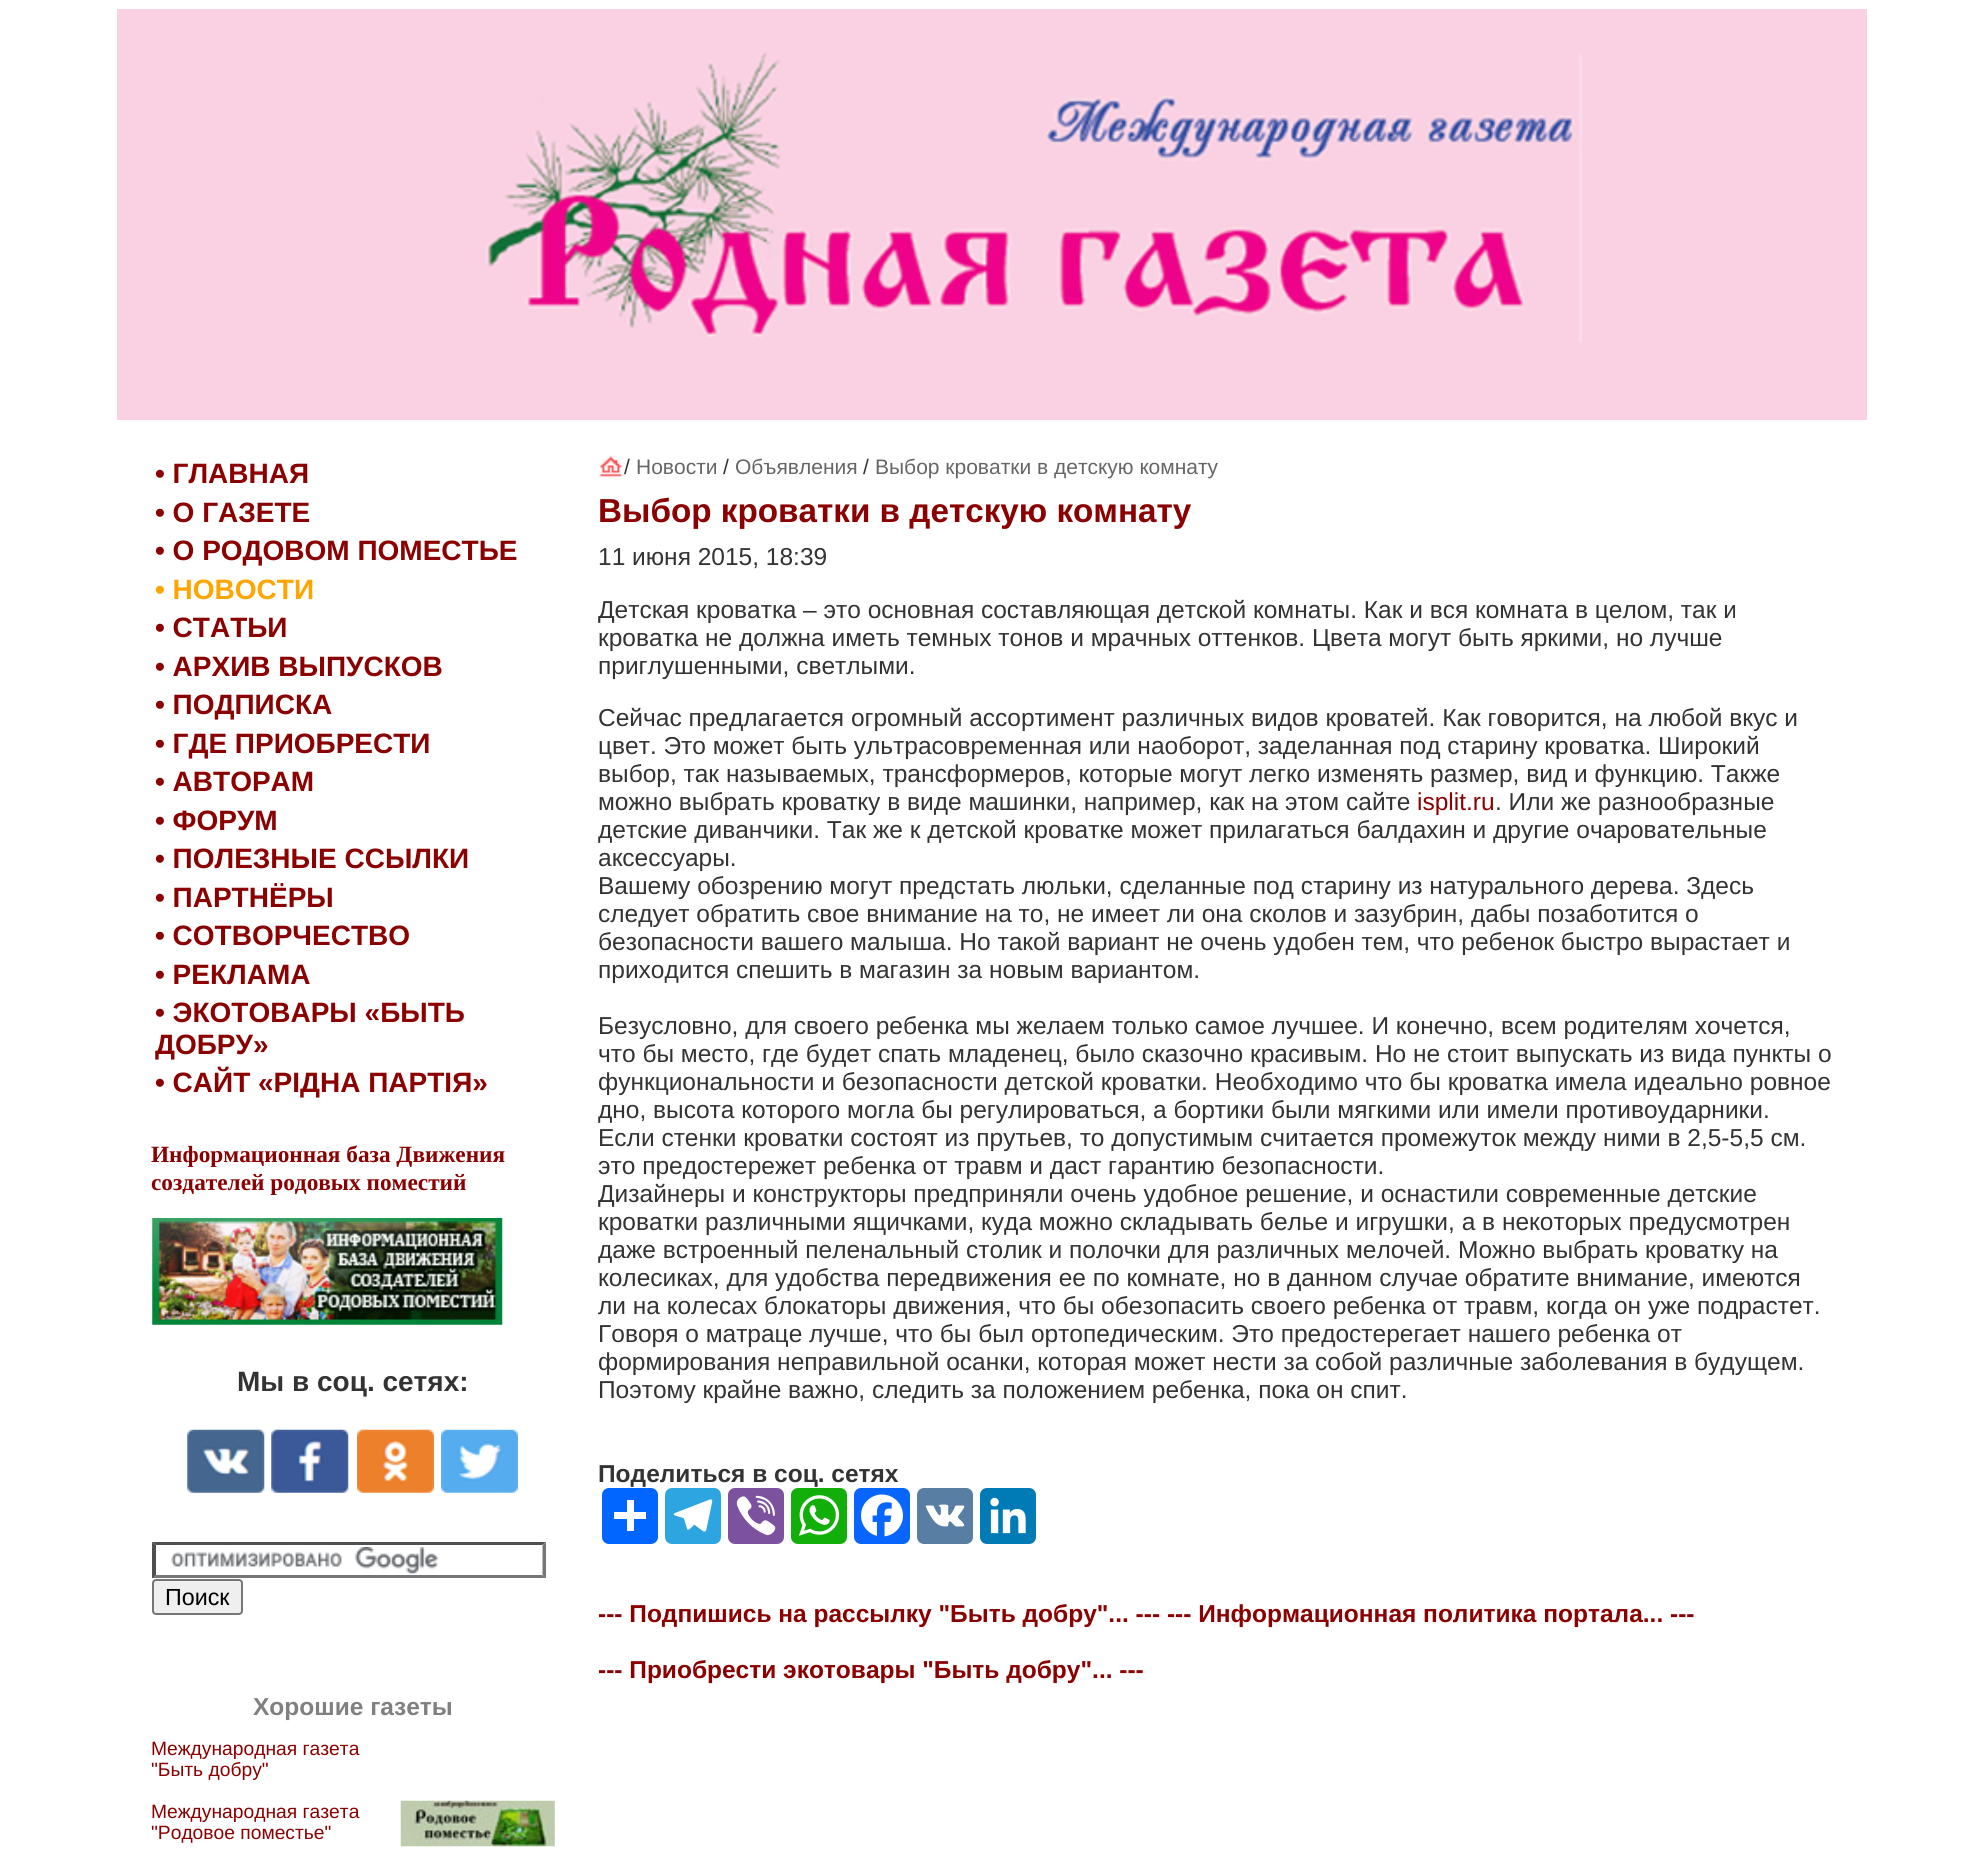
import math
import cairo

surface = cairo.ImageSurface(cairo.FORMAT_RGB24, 1982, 1851)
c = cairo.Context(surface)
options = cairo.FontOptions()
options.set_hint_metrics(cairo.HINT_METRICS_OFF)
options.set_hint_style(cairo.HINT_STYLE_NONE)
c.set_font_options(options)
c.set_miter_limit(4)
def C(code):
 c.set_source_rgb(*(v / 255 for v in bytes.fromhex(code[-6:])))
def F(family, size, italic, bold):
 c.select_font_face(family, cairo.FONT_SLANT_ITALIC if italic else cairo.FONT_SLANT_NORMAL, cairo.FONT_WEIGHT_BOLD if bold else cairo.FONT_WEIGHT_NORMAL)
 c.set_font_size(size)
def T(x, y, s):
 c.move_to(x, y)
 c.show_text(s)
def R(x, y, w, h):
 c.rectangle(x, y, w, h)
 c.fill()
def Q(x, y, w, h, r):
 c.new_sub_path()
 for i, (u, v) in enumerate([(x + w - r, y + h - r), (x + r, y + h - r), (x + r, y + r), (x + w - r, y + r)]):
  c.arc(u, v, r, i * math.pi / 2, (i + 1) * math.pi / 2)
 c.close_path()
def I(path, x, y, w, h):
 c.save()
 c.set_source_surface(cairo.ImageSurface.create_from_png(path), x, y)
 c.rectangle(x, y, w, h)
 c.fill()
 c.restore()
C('ffffff')
c.paint()
C('fad1e3')
R(117,9,1750,411)
I('1.png',480,52,1102,291)
F('Liberation Sans',28,0,1)
C('8b0000')
T(155,483,'• ГЛАВНАЯ')
T(155,522,'• О ГАЗЕТЕ')
T(155,560,'• О РОДОВОМ ПОМЕСТЬЕ')
C('ffa500')
T(155,599,'• НОВОСТИ')
C('8b0000')
T(155,637,'• СТАТЬИ')
T(155,676,'• АРХИВ ВЫПУСКОВ')
T(155,714,'• ПОДПИСКА')
T(155,753,'• ГДЕ ПРИОБРЕСТИ')
T(155,791,'• АВТОРАМ')
T(155,830,'• ФОРУМ')
T(155,868,'• ПОЛЕЗНЫЕ ССЫЛКИ')
T(155,907,'• ПАРТНЁРЫ')
T(155,945,'• СОТВОРЧЕСТВО')
T(155,984,'• РЕКЛАМА')
T(155,1022,'• ЭКОТОВАРЫ «БЫТЬ')
T(155,1054,'ДОБРУ»')
T(155,1092,'• САЙТ «РІДНА ПАРТІЯ»')
F('Liberation Serif',23.3,0,1)
T(151,1162,'Информационная база Движения')
T(151,1190,'создателей родовых поместий')
I('2.png',152,1218,351,107)
F('Liberation Sans',28,0,1)
C('333333')
T(237,1391,'Мы в соц. сетях:')
I('3.png',187,1429,78,64)
I('4.png',271,1429,78,64)
I('5.png',357,1429,77,64)
I('6.png',441,1429,77,64)
I('7.png',171,1547,267,27)
C('4f4f4f')
c.new_path()
c.move_to(152,1542)
c.line_to(546,1542)
c.line_to(542,1545)
c.line_to(156,1545)
c.close_path()
c.fill()
C('767676')
c.new_path()
c.move_to(546,1542)
c.line_to(546,1578.5)
c.line_to(542.5,1575)
c.line_to(542.5,1545)
c.close_path()
c.fill()
c.new_path()
c.move_to(546,1578)
c.line_to(152,1578)
c.line_to(156,1575)
c.line_to(542,1575)
c.close_path()
c.fill()
C('4f4f4f')
c.new_path()
c.move_to(152,1578.5)
c.line_to(152,1542)
c.line_to(156,1545)
c.line_to(156,1575)
c.close_path()
c.fill()
C('efefef')
Q(153,1580,89,34,3)
c.fill_preserve()
C('767676')
c.stroke()
F('Liberation Sans',23.3,0,0)
C('000000')
T(165,1605,'Поиск')
F('Liberation Sans',24.5,0,1)
C('808080')
T(253,1715,'Хорошие газеты')
F('Liberation Sans',19.25,0,0)
C('8b0000')
T(151,1755,'Международная газета')
T(151,1776,'"Быть добру"')
T(151,1818,'Международная газета')
I('8.png',400,1800,155,47)
T(151,1839,'"Родовое поместье"')
I('9.png',599,455,24,23)
F('Liberation Sans',21,0,0)
C('333333')
T(624,474,'/')
C('666666')
T(636,474,'Новости')
C('333333')
T(723,474,'/')
C('666666')
T(735,474,'Объявления')
C('333333')
T(863,474,'/')
C('666666')
T(875,474,'Выбор кроватки в детскую комнату')
F('Liberation Sans',33.25,0,1)
C('8b0000')
T(598,522,'Выбор кроватки в детскую комнату')
F('Liberation Sans',24.5,0,0)
C('333333')
T(598,565,'11 июня 2015, 18:39')
T(598,618,'Детская кроватка – это основная составляющая детской комнаты. Как и вся комната в целом, так и')
T(598,646,'кроватка не должна иметь темных тонов и мрачных оттенков. Цвета могут быть яркими, но лучше')
T(598,674,'приглушенными, светлыми.')
T(598,726,'Сейчас предлагается огромный ассортимент различных видов кроватей. Как говорится, на любой вкус и')
T(598,754,'цвет. Это может быть ультрасовременная или наоборот, заделанная под старину кроватка. Широкий')
T(598,782,'выбор, так называемых, трансформеров, которые могут легко изменять размер, вид и функцию. Также')
T(598,810,'можно выбрать кроватку в виде машинки, например, как на этом сайте')
C('8b0000')
T(1417,810,'isplit.ru')
C('333333')
T(1495,810,'. Или же разнообразные')
T(598,838,'детские диванчики. Так же к детской кроватке может прилагаться балдахин и другие очаровательные')
T(598,866,'аксессуары.')
T(598,894,'Вашему обозрению могут предстать люльки, сделанные под старину из натурального дерева. Здесь')
T(598,922,'следует обратить свое внимание на то, не имеет ли она сколов и зазубрин, дабы позаботится о')
T(598,950,'безопасности вашего малыша. Но такой вариант не очень удобен тем, что ребенок быстро вырастает и')
T(598,978,'приходится спешить в магазин за новым вариантом.')
T(598,1034,'Безусловно, для своего ребенка мы желаем только самое лучшее. И конечно, всем родителям хочется,')
T(598,1062,'что бы место, где будет спать младенец, было сказочно красивым. Но не стоит выпускать из вида пункты о')
T(598,1090,'функциональности и безопасности детской кроватки. Необходимо что бы кроватка имела идеально ровное')
T(598,1118,'дно, высота которого могла бы регулироваться, а бортики были мягкими или имели противоударники.')
T(598,1146,'Если стенки кроватки состоят из прутьев, то допустимым считается промежуток между ними в 2,5-5,5 см.')
T(598,1174,'это предостережет ребенка от травм и даст гарантию безопасности.')
T(598,1202,'Дизайнеры и конструкторы предприняли очень удобное решение, и оснастили современные детские')
T(598,1230,'кроватки различными ящичками, куда можно складывать белье и игрушки, а в некоторых предусмотрен')
T(598,1258,'даже встроенный пеленальный столик и полочки для различных мелочей. Можно выбрать кроватку на')
T(598,1286,'колесиках, для удобства передвижения ее по комнате, но в данном случае обратите внимание, имеются')
T(598,1314,'ли на колесах блокаторы движения, что бы обезопасить своего ребенка от травм, когда он уже подрастет.')
T(598,1342,'Говоря о матраце лучше, что бы был ортопедическим. Это предостерегает нашего ребенка от')
T(598,1370,'формирования неправильной осанки, которая может нести за собой различные заболевания в будущем.')
T(598,1398,'Поэтому крайне важно, следить за положением ребенка, пока он спит.')
F('Liberation Sans',24.5,0,1)
T(598,1482,'Поделиться в соц. сетях')
C('0166ff')
Q(602,1488,56,56,7)
c.fill()
C('ffffff')
R(627,1500,7,31)
R(614,1512,32,7)
C('2ca5e0')
Q(665,1488,56,56,7)
c.fill()
I('10.png',673,1499,40,33)
C('7c529e')
Q(728,1488,56,56,7)
c.fill()
I('11.png',736,1495,40,41)
C('12af0a')
Q(791,1488,56,56,7)
c.fill()
I('12.png',799,1495,41,41)
C('0866ff')
Q(854,1488,56,56,7)
c.fill()
I('13.png',861,1494,42,43)
C('587ea3')
Q(917,1488,56,56,7)
c.fill()
I('14.png',925,1504,40,23)
C('007bb5')
Q(980,1488,56,56,7)
c.fill()
I('15.png',990,1497,36,37)
C('8b0000')
T(598,1622,'--- Подпишись на рассылку "Быть добру"... --- --- Информационная политика портала... ---')
T(598,1678,'--- Приобрести экотовары "Быть добру"... ---')
surface.write_to_png('o.png')
